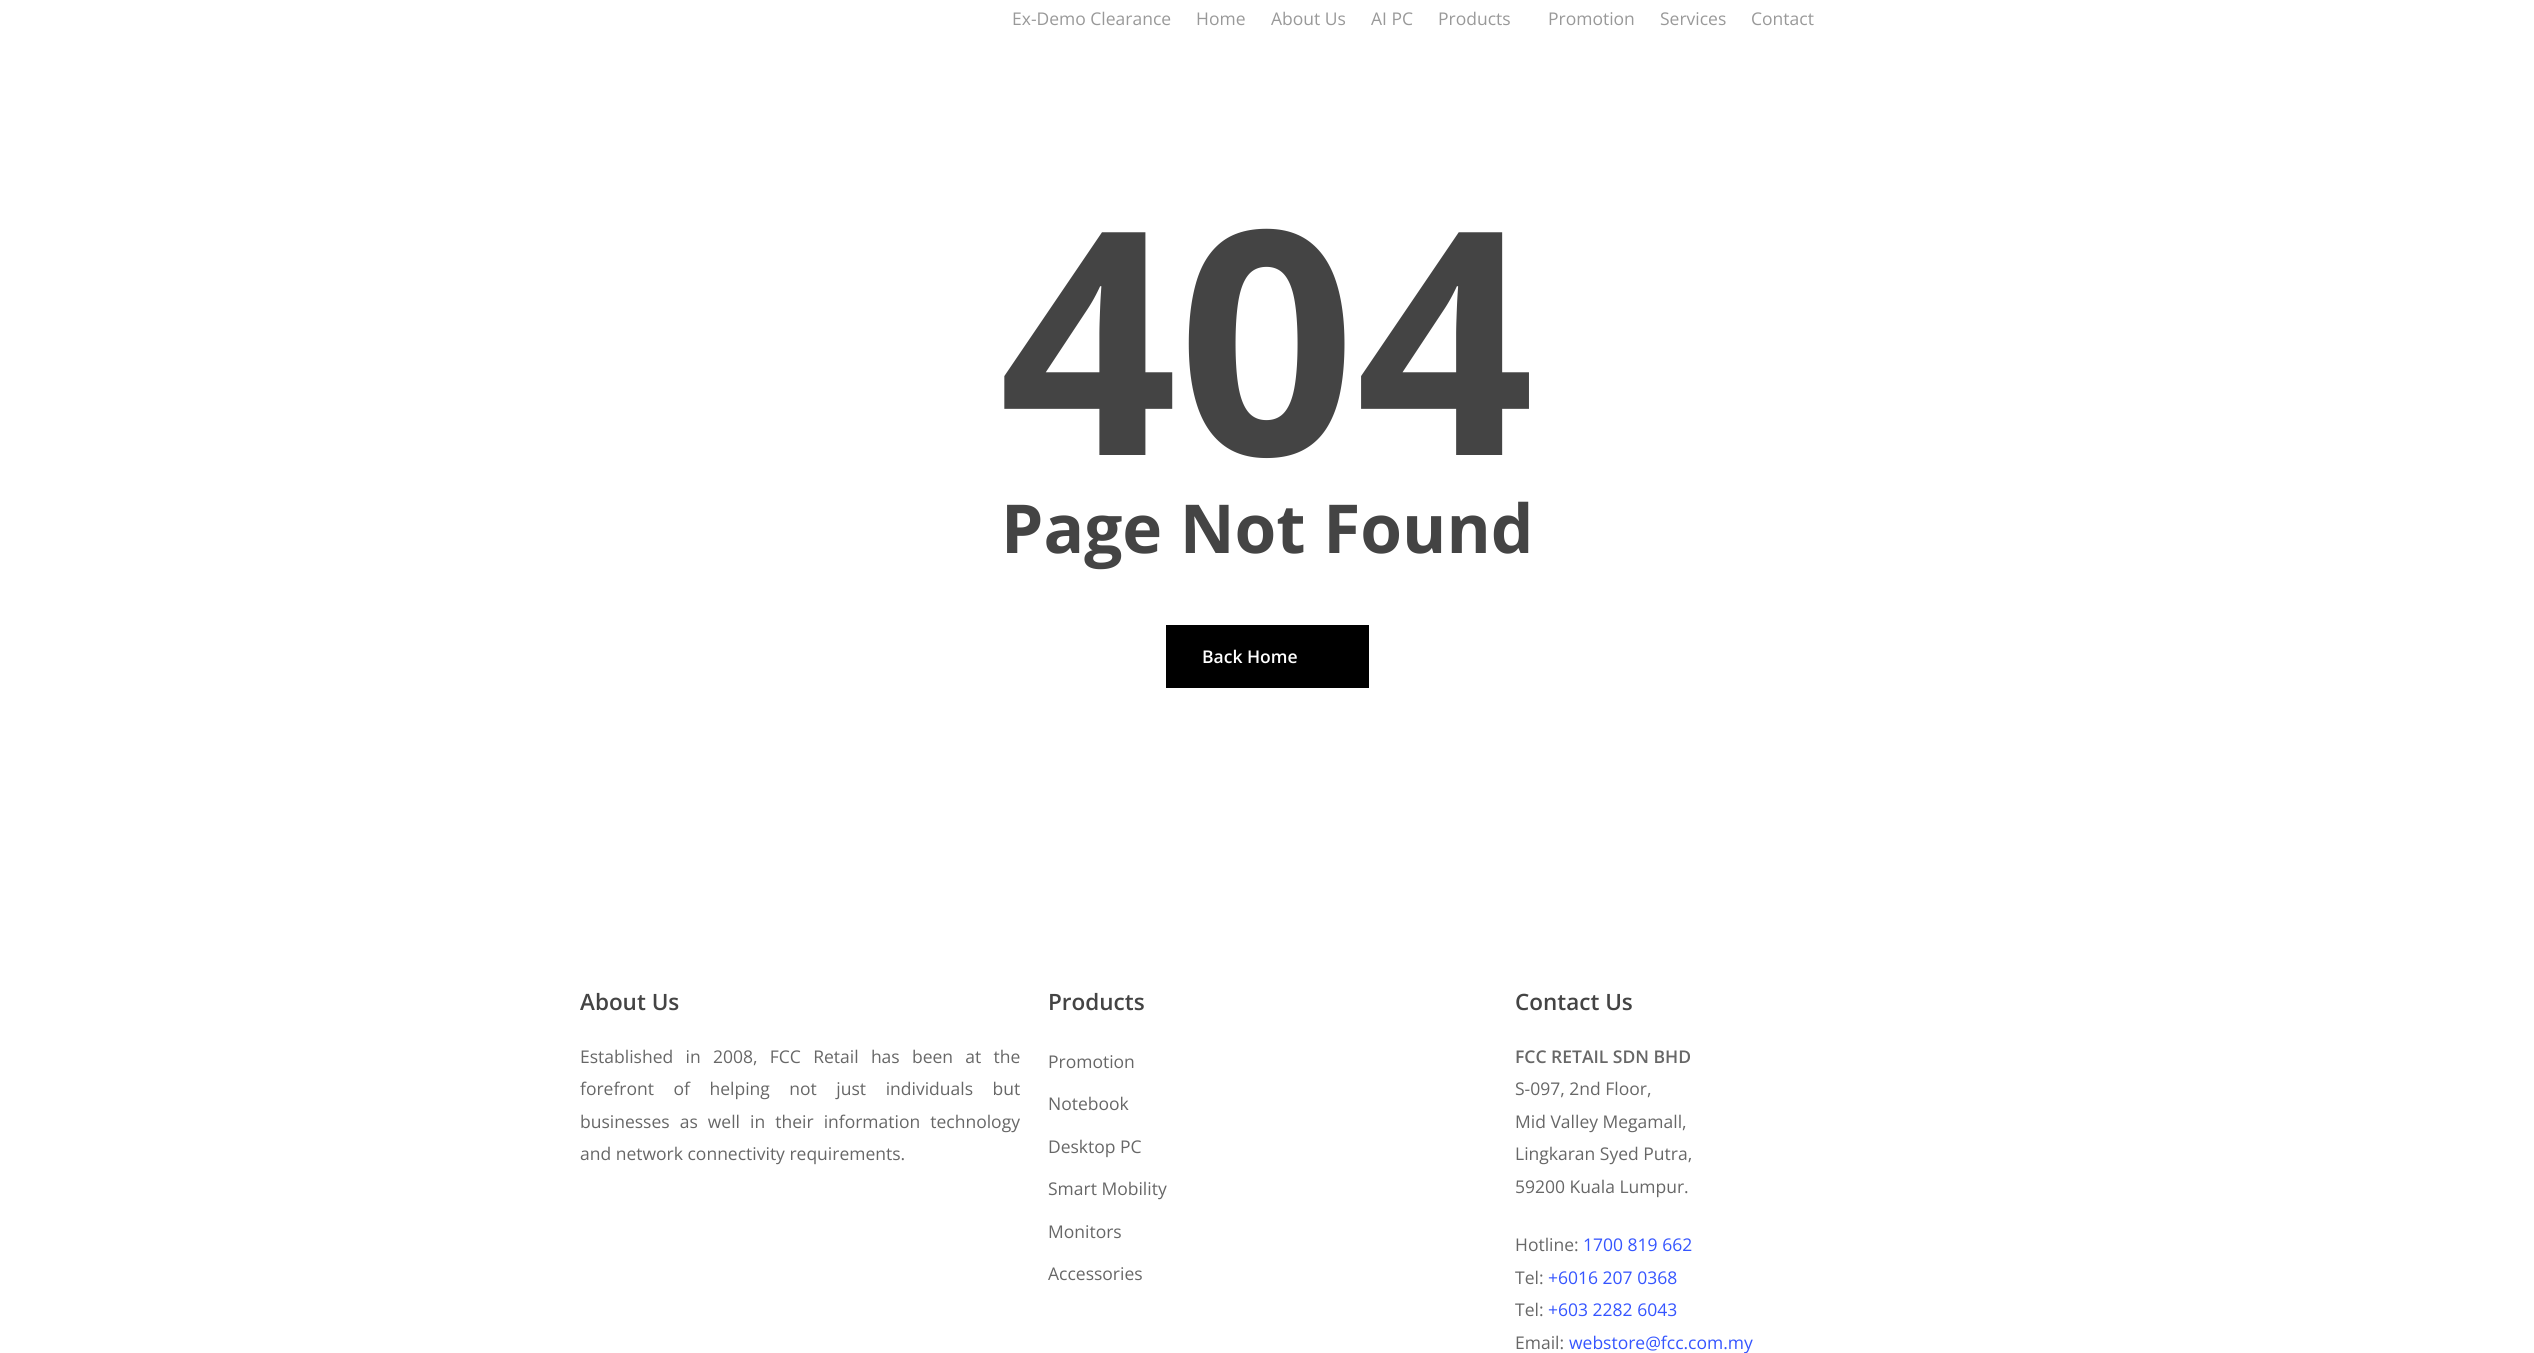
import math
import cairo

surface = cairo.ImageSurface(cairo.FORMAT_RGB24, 2534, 1353)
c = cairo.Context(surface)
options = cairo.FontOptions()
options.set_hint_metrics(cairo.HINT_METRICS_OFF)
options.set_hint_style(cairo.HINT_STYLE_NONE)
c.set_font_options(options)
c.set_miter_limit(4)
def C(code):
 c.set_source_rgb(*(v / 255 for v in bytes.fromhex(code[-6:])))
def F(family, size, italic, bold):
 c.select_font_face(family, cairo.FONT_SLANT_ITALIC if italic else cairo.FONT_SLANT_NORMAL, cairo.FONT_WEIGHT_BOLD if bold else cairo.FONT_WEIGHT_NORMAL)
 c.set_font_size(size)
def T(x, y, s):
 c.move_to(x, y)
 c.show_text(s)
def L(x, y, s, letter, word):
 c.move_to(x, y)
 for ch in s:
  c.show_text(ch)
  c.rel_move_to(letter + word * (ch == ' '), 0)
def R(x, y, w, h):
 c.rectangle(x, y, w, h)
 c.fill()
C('ffffff')
c.paint()
F('Open Sans',17.5,0,0)
C('999999')
T(1012,25,'Ex-Demo Clearance')
T(1196,25,'Home')
T(1271,25,'About Us')
T(1371,25,'AI PC')
T(1438,25,'Products')
T(1548,25,'Promotion')
T(1660,25,'Services')
T(1751,25,'Contact')
F('Open Sans',312,0,1)
C('444444')
T(999,455,'404')
F('Open Sans',67.5,0,1)
T(1001,553,'Page Not Found')
C('000000')
R(1166,625,203,63)
F('Open Sans SemiBold',17.5,0,0)
C('ffffff')
T(1202,663,'Back Home')
F('Open Sans SemiBold',22.5,0,0)
C('444444')
T(580,1010,'About Us')
F('Open Sans',17.5,0,0)
C('676767')
L(580,1063,'Established in 2008, FCC Retail has been at the',0,7.75)
L(580,1095,'forefront of helping not just individuals but',0,15)
L(580,1128,'businesses as well in their information technology',0,5.5)
T(580,1160,'and network connectivity requirements.')
F('Open Sans SemiBold',22.5,0,0)
C('444444')
T(1048,1010,'Products')
F('Open Sans',17.5,0,0)
C('676767')
T(1048,1068,'Promotion')
T(1048,1110,'Notebook')
T(1048,1153,'Desktop PC')
T(1048,1195,'Smart Mobility')
T(1048,1238,'Monitors')
T(1048,1280,'Accessories')
F('Open Sans SemiBold',22.5,0,0)
C('444444')
T(1515,1010,'Contact Us')
F('Open Sans SemiBold',17.5,0,0)
C('676767')
T(1515,1063,'FCC RETAIL SDN BHD')
F('Open Sans',17.5,0,0)
T(1515,1095,'S-097, 2nd Floor,')
T(1515,1128,'Mid Valley Megamall,')
T(1515,1160,'Lingkaran Syed Putra,')
T(1515,1193,'59200 Kuala Lumpur.')
T(1515,1251,'Hotline:')
C('3555ff')
T(1583,1251,'1700 819 662')
C('676767')
T(1515,1284,'Tel:')
C('3555ff')
T(1548,1284,'+6016 207 0368')
C('676767')
T(1515,1316,'Tel:')
C('3555ff')
T(1548,1316,'+603 2282 6043')
C('676767')
T(1515,1349,'Email:')
C('3555ff')
T(1569,1349,'webstore@fcc.com.my')
surface.write_to_png('o.png')
